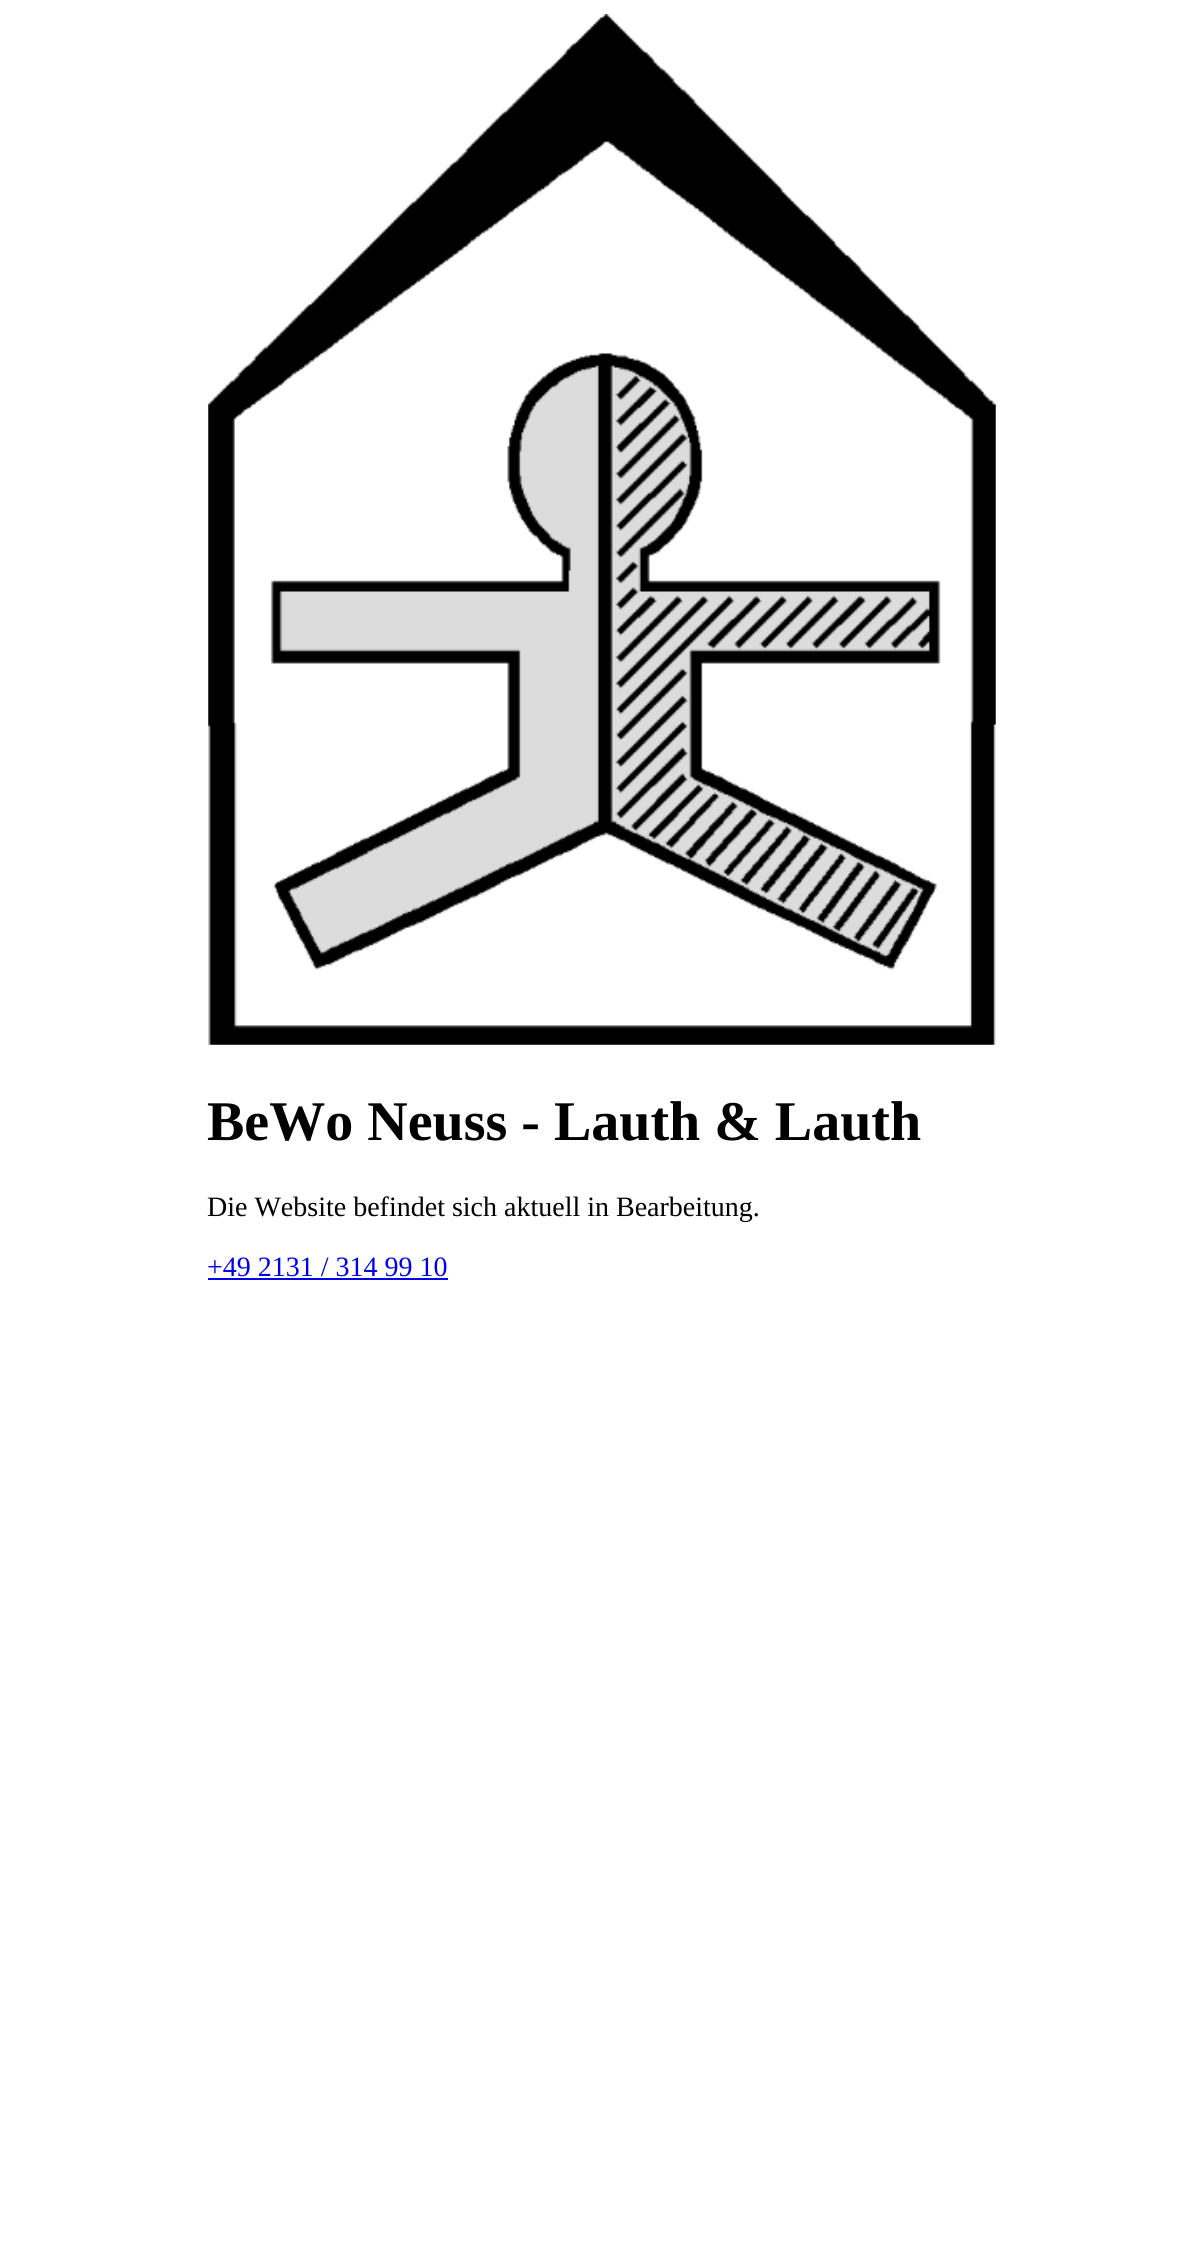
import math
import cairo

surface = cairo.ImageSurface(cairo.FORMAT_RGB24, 1202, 2256)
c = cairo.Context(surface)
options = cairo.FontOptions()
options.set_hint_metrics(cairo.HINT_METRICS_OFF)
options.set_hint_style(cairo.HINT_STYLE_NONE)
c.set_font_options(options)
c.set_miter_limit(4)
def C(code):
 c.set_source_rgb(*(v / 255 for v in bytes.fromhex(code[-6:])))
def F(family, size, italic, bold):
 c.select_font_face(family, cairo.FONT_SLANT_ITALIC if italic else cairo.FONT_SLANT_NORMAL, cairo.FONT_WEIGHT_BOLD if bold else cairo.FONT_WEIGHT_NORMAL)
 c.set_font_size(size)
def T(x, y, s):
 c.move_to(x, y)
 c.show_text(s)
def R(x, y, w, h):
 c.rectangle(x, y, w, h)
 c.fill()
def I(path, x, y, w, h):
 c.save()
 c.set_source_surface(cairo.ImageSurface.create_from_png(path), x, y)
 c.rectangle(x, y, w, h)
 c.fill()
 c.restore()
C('ffffff')
c.paint()
I('1.png',208,14,788,1031)
F('Liberation Serif',56,0,1)
C('000000')
T(207,1140,'BeWo Neuss - Lauth & Lauth')
F('Liberation Serif',28,0,0)
T(207,1216,'Die Website befindet sich aktuell in Bearbeitung.')
C('0000ee')
T(207,1276,'+49 2131 / 314 99 10')
R(208,1278,240,2)
surface.write_to_png('o.png')
